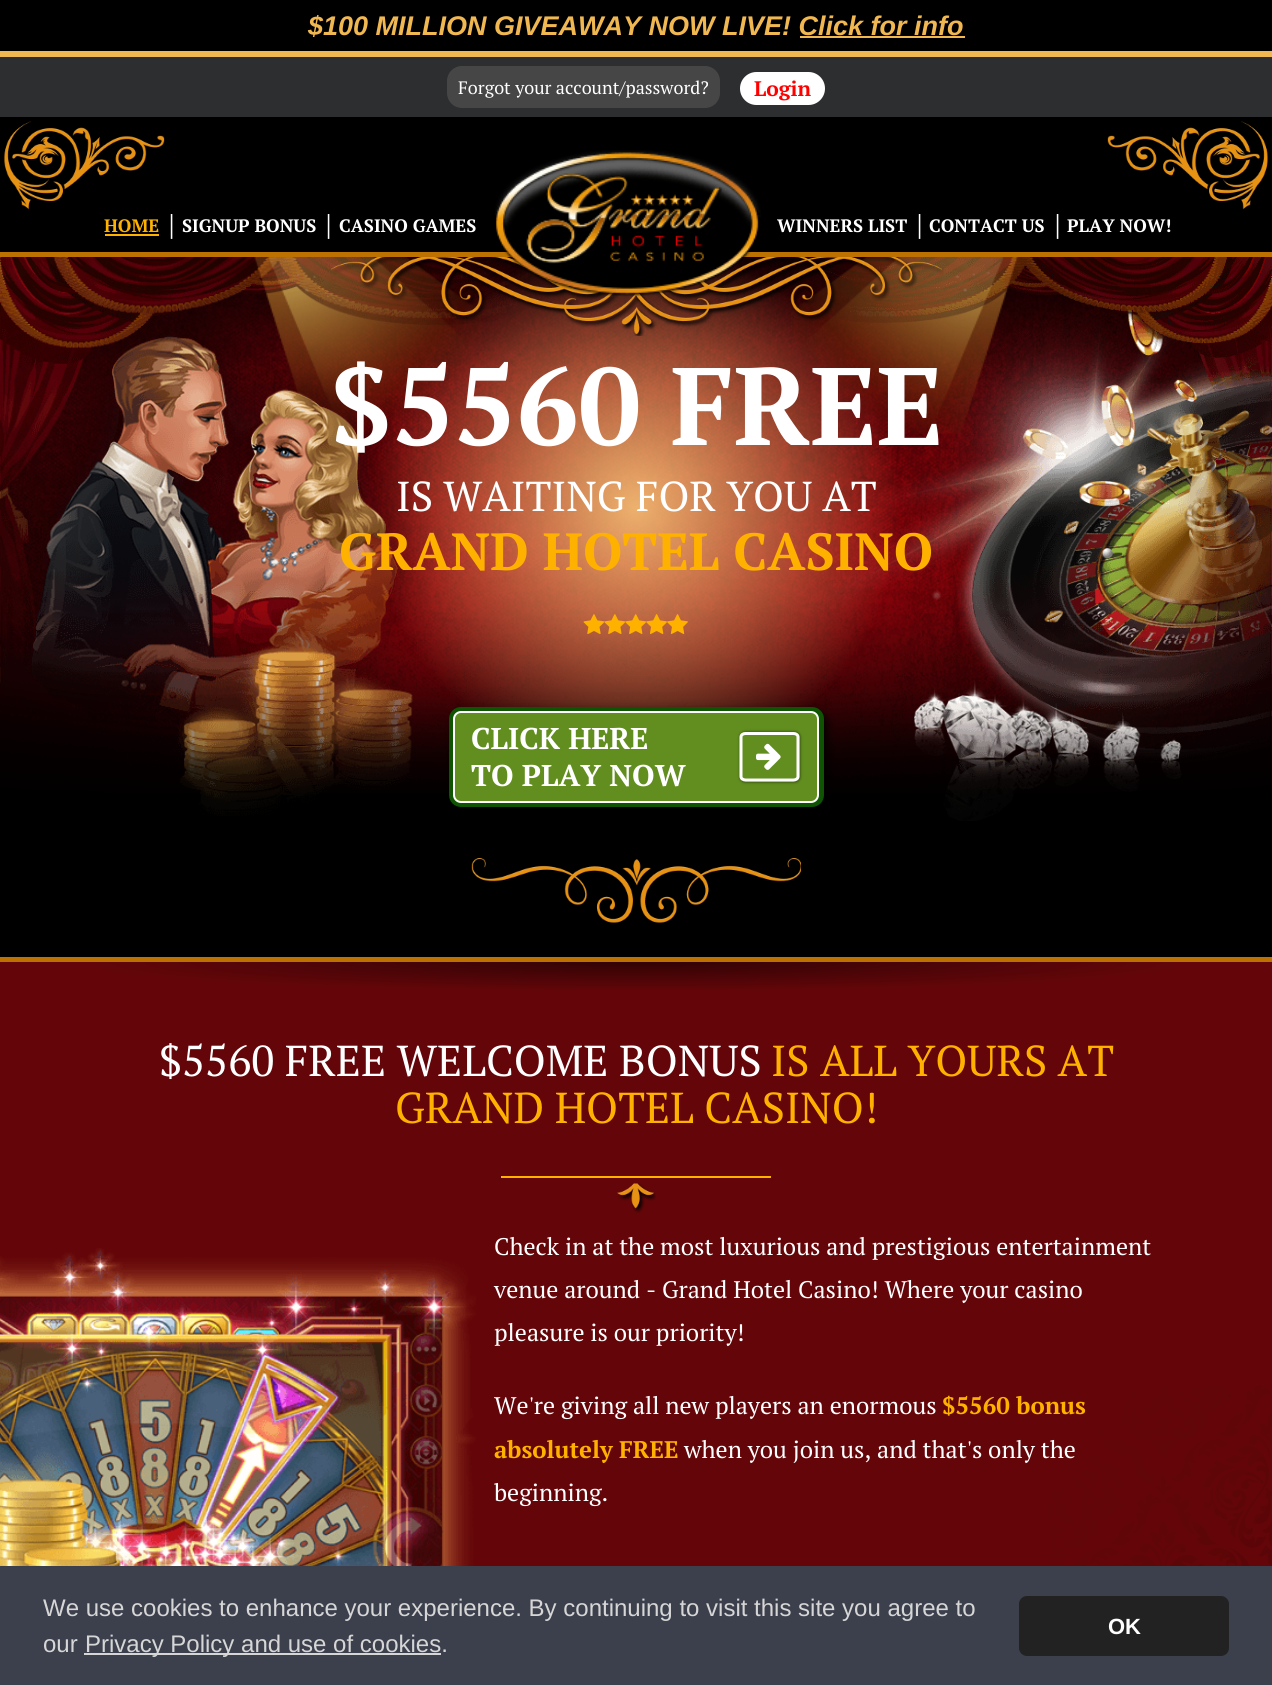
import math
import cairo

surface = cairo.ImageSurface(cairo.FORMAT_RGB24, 1272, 1685)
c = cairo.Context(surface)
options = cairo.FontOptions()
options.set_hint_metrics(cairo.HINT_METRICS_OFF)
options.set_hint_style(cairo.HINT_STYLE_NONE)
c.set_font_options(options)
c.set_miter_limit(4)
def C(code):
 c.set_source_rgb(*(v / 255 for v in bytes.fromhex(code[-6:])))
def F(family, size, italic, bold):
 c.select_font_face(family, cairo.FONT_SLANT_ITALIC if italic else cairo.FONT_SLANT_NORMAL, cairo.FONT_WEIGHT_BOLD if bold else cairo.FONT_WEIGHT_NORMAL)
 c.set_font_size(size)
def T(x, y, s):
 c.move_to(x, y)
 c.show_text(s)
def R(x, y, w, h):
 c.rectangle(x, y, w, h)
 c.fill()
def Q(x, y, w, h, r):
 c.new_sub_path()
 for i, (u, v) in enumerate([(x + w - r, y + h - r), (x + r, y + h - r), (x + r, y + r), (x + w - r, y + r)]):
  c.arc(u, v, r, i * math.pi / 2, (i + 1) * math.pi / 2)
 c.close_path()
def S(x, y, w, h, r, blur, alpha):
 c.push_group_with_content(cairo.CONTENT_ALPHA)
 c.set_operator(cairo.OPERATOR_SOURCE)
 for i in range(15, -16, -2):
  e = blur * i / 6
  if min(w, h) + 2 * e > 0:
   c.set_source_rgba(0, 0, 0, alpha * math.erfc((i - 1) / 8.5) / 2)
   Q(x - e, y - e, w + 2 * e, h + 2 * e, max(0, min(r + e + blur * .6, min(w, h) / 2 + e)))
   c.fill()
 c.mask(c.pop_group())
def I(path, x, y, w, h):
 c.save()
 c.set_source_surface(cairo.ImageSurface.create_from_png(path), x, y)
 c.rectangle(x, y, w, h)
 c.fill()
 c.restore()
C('000000')
c.paint()
C('f1b852')
R(0,51,1272,6)
F('Liberation Sans',27,1,1)
T(308,35,'$100 MILLION GIVEAWAY NOW LIVE! Click for info')
R(800,36,165,2)
C('2c2e30')
R(0,57,1272,60)
C('464646')
Q(447,66,273,42,15)
c.fill()
F('PT Serif',18,0,0)
C('ffffff')
T(458,94,'Forgot your account/password?')
Q(740,72,85,33,16.5)
c.fill()
F('PT Serif',21,0,1)
C('ff0000')
T(754,96,'Login')
I('1.png',4,121,161,89)
I('2.png',1107,121,161,89)
F('PT Serif',18,0,1)
C('ffb100')
T(104,232,'HOME')
R(105,234,54,2)
F('PT Serif',30,0,0)
C('ffffff')
T(168,235,'|')
F('PT Serif',18,0,1)
T(182,232,'SIGNUP BONUS')
F('PT Serif',30,0,0)
T(325,235,'|')
F('PT Serif',18,0,1)
T(339,232,'CASINO GAMES')
C('bc7100')
R(0,252,1272,5)
I('5.png',0,257,1272,536)
I('7.png',254,257,227,177)
I('6.png',0,257,545,559)
I('8.png',791,257,227,177)
I('11.png',794,257,478,564)
I('4.png',331,257,613,79)
I('3.png',495,150,266,147)
C('ffffff')
T(777,232,'WINNERS LIST')
F('PT Serif',30,0,0)
T(916,235,'|')
F('PT Serif',18,0,1)
T(929,232,'CONTACT US')
F('PT Serif',30,0,0)
T(1054,235,'|')
F('PT Serif',18,0,1)
T(1067,232,'PLAY NOW!')
F('PT Serif',110,0,1)
T(330,445,'$5560 FREE')
F('PT Serif',41.8,0,0)
T(396,511,'IS WAITING FOR YOU AT')
F('PT Serif',52.25,0,1)
C('ffb100')
T(339,570,'GRAND HOTEL CASINO')
I('9.png',583,614,105,20)
C('000000')
S(453,711,375,101,12,4,.75)
C('0e5402')
Q(449,707,375,100,12)
c.fill()
C('628e1f')
Q(454,712,364,90,7)
c.fill_preserve()
C('ffffff')
c.stroke()
F('PT Serif',30,0,1)
T(471,749,'CLICK HERE')
c.save()
c.set_fill_rule(cairo.FILL_RULE_EVEN_ODD)
c.new_path()
c.move_to(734,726)
c.line_to(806,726)
c.line_to(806,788)
c.line_to(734,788)
c.close_path()
c.move_to(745.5,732)
c.line_to(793.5,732)
c.curve_to(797,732,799.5,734,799.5,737)
c.line_to(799.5,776.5)
c.curve_to(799.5,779.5,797,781.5,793.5,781.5)
c.line_to(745.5,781.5)
c.curve_to(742,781.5,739.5,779.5,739.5,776.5)
c.line_to(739.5,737)
c.curve_to(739.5,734,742,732,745.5,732)
c.close_path()
c.clip()
C('000000')
S(740,732,60,50,5,1.5,.6)
c.restore()
c.new_path()
c.move_to(745.5,733.5)
c.line_to(793.5,733.5)
c.curve_to(796,733.5,798,735,798,737)
c.line_to(798,776.5)
c.curve_to(798,778.5,796,780,793.5,780)
c.line_to(745.5,780)
c.curve_to(743,780,741,778.5,741,776.5)
c.line_to(741,737)
c.curve_to(741,735,743,733.5,745.5,733.5)
c.close_path()
c.set_line_width(3)
c.stroke()
I('10.png',756,743,25,27)
T(471,786,'TO PLAY NOW')
I('12.png',471,858,330,65)
C('bc7100')
R(0,957,1272,5)
C('640609')
R(0,962,1272,604)
I('13.png',1050,1385,222,181)
gradient = cairo.RadialGradient(0,0,0,0,0,1)
gradient.set_matrix(cairo.Matrix(1 / 563, 0, 0, 1 / 30, -1 * 636 / 563, -1 * 962 / 30))
gradient.add_color_stop_rgba(0,0.196,0.012,0.02,1)
gradient.add_color_stop_rgba(1,0.392,0.024,0.035,1)
c.set_source(gradient)
R(99,962,1074,28)
F('PT Serif',43.25,0,0)
C('ffffff')
T(159,1076,'$5560 FREE WELCOME BONUS')
C('ffb100')
T(771,1076,'IS ALL YOURS AT')
T(395,1123,'GRAND HOTEL CASINO!')
R(501,1176,270,2)
I('14.png',617,1183,39,30)
I('15.png',0,1248,476,318)
F('PT Serif',24,0,0)
C('ffffff')
T(494,1255,'Check in at the most luxurious and prestigious entertainment')
T(494,1298,'venue around - Grand Hotel Casino! Where your casino')
T(494,1341,'pleasure is our priority!')
T(494,1414,'We\'re giving all new players an enormous')
F('PT Serif',24,0,1)
C('ffb100')
T(942,1414,'$5560 bonus')
T(494,1458,'absolutely FREE')
F('PT Serif',24,0,0)
C('ffffff')
T(684,1458,'when you join us, and that\'s only the')
T(494,1501,'beginning.')
C('3c404d')
R(0,1566,1272,119)
F('Liberation Sans',24,0,0)
C('d6d6d6')
T(43,1616,'We use cookies to enhance your experience. By continuing to visit this site you agree to')
T(43,1652,'our')
R(84,1653,357,2)
T(85,1652,'Privacy Policy and use of cookies.')
C('222222')
Q(1019,1596,210,60,8)
c.fill()
F('Liberation Sans',22,0,1)
C('ffffff')
T(1108,1634,'OK')
surface.write_to_png('o.png')
